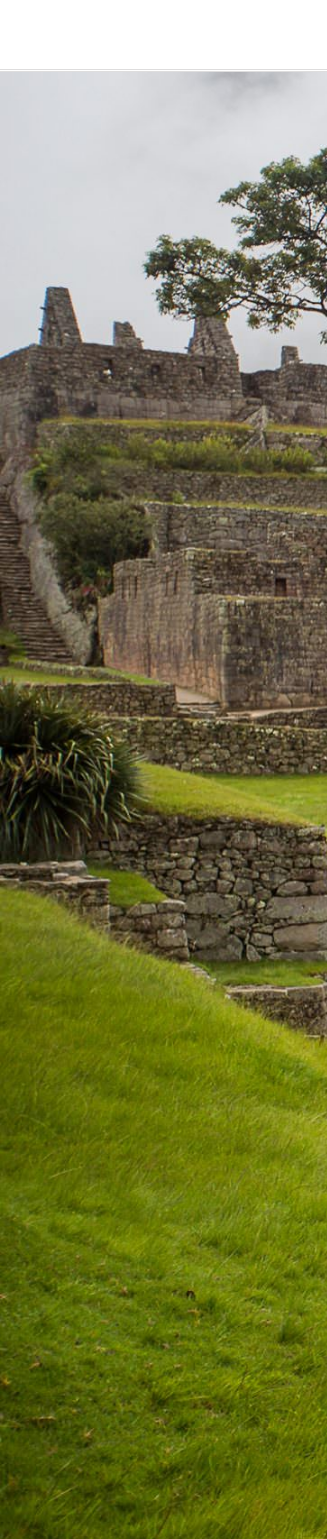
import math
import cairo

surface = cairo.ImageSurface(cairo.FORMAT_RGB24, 327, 1539)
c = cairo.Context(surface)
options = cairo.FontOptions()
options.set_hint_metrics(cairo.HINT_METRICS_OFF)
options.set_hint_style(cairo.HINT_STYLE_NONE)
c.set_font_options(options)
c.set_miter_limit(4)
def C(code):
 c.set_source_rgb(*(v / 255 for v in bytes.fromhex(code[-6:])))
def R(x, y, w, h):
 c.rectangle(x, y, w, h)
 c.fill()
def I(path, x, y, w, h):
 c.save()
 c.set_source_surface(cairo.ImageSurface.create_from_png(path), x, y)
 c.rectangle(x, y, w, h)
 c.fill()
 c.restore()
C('ffffff')
c.paint()
C('dedddd')
R(0,69,327,1)
R(0,71,327,1)
I('1.png',0,72,327,1467)
surface.write_to_png('o.png')
